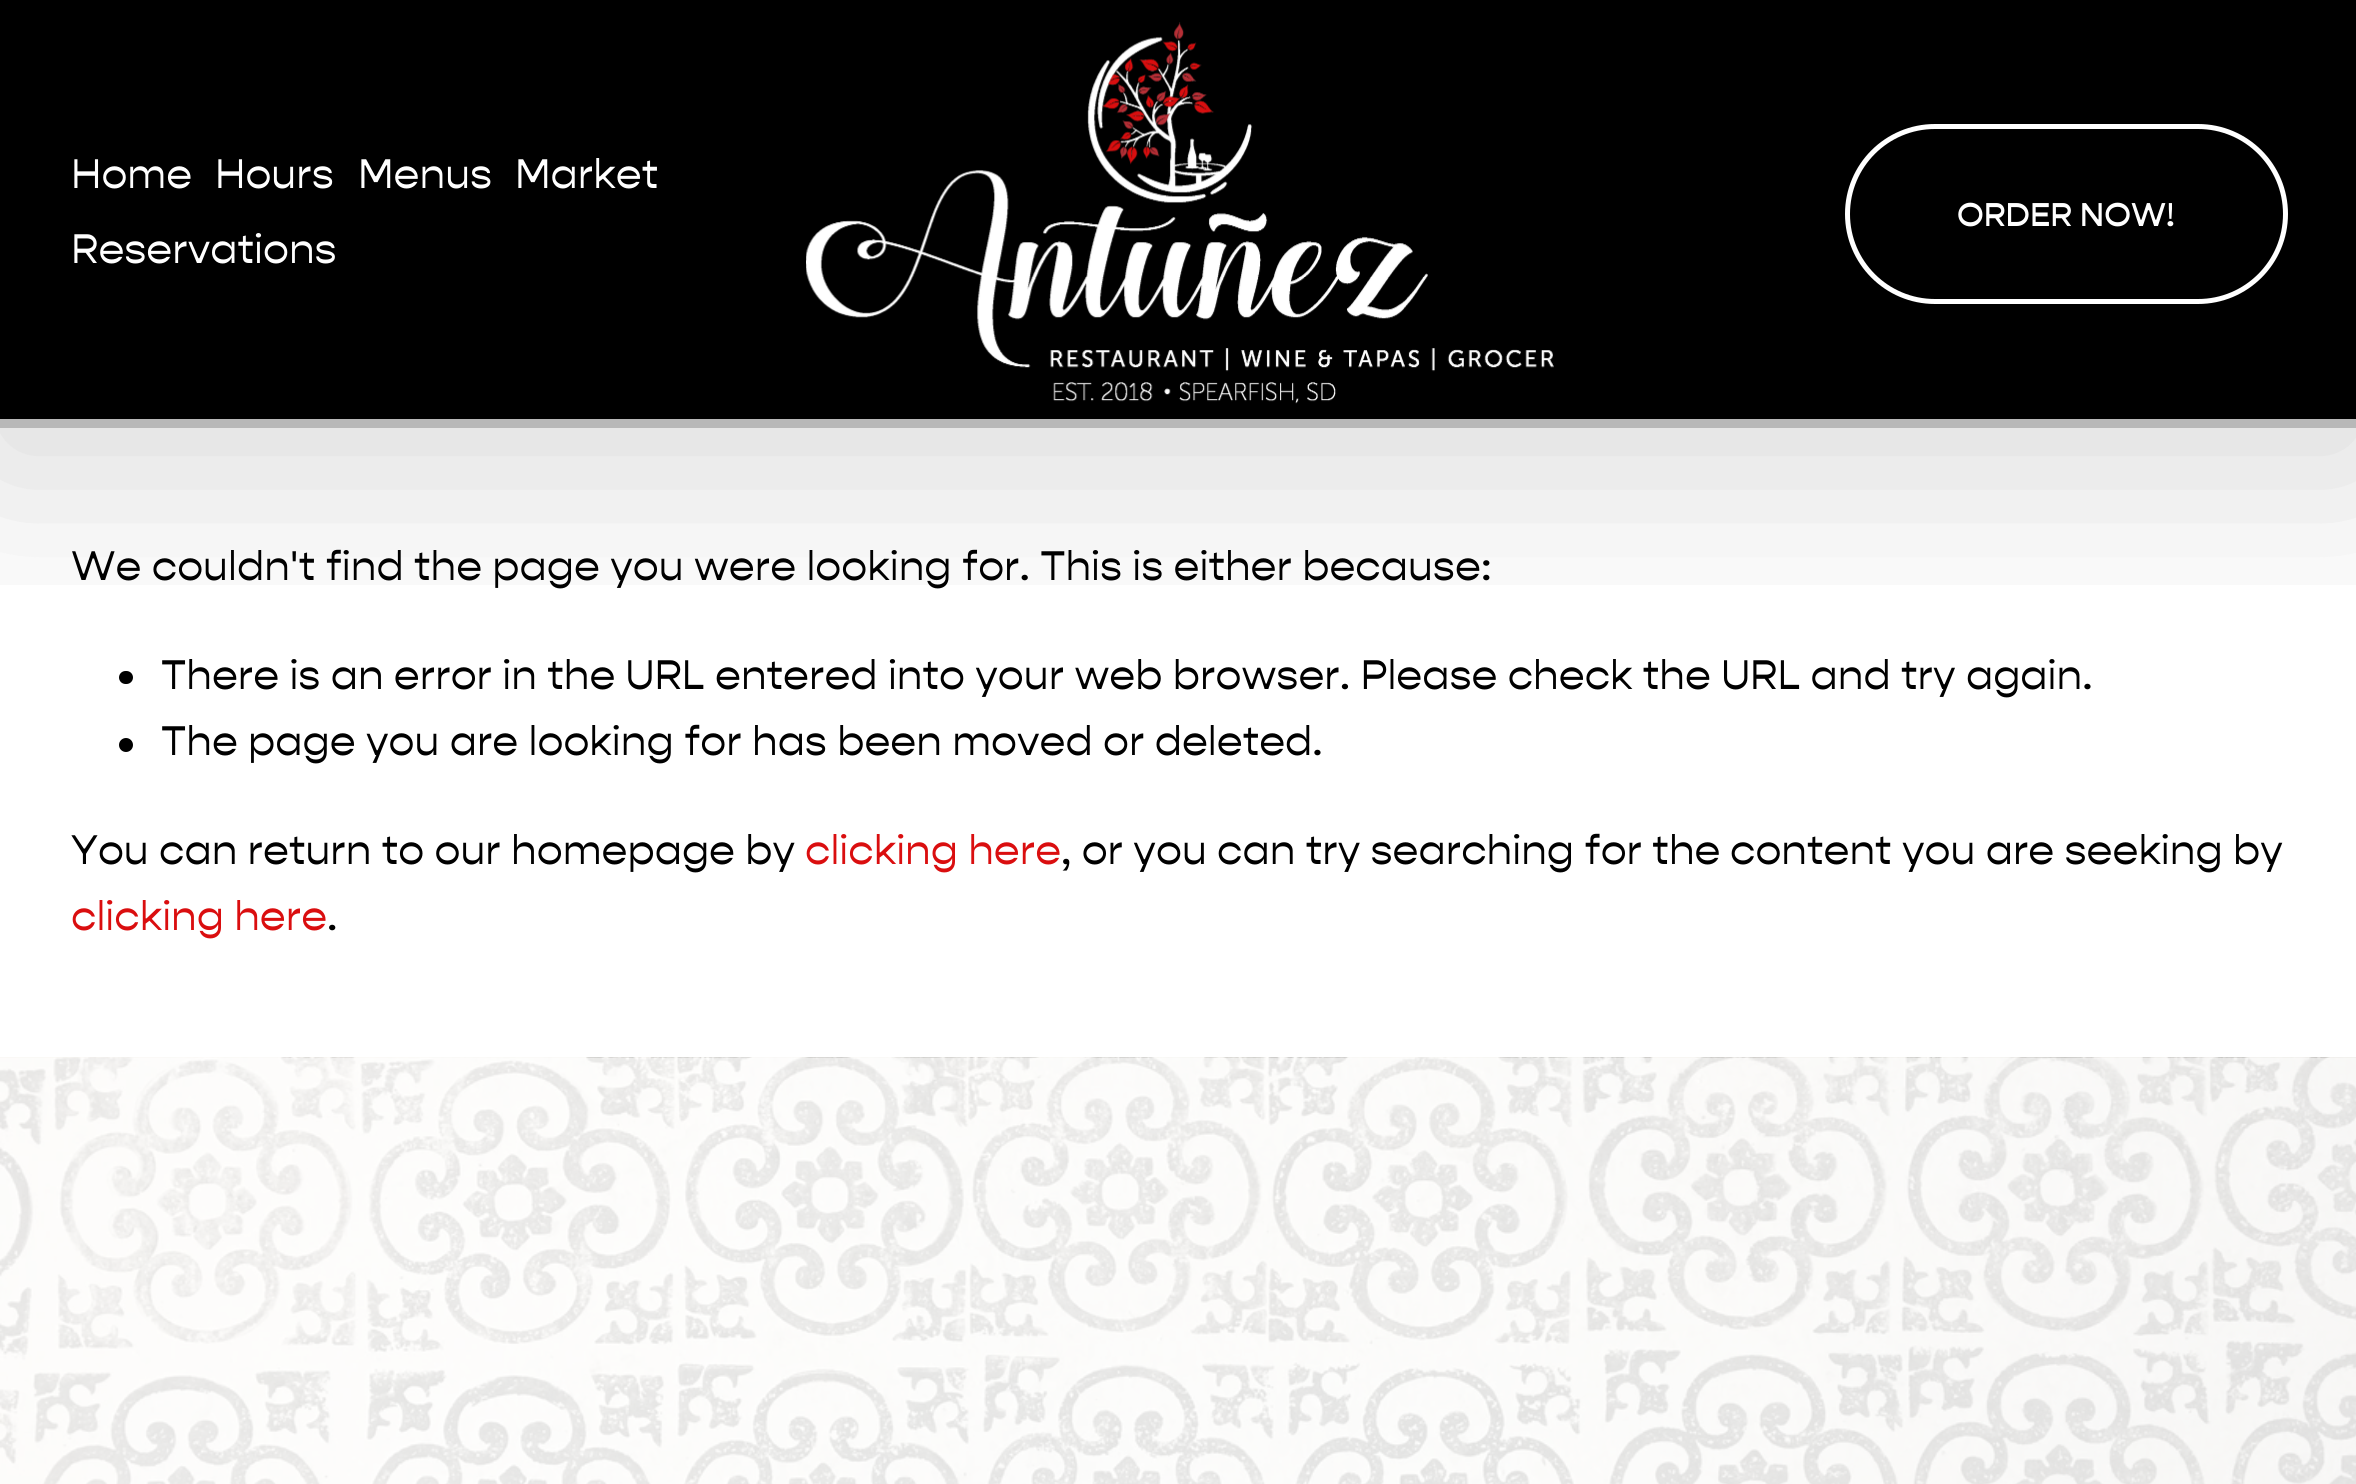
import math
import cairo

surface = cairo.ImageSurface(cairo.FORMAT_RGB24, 2356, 1484)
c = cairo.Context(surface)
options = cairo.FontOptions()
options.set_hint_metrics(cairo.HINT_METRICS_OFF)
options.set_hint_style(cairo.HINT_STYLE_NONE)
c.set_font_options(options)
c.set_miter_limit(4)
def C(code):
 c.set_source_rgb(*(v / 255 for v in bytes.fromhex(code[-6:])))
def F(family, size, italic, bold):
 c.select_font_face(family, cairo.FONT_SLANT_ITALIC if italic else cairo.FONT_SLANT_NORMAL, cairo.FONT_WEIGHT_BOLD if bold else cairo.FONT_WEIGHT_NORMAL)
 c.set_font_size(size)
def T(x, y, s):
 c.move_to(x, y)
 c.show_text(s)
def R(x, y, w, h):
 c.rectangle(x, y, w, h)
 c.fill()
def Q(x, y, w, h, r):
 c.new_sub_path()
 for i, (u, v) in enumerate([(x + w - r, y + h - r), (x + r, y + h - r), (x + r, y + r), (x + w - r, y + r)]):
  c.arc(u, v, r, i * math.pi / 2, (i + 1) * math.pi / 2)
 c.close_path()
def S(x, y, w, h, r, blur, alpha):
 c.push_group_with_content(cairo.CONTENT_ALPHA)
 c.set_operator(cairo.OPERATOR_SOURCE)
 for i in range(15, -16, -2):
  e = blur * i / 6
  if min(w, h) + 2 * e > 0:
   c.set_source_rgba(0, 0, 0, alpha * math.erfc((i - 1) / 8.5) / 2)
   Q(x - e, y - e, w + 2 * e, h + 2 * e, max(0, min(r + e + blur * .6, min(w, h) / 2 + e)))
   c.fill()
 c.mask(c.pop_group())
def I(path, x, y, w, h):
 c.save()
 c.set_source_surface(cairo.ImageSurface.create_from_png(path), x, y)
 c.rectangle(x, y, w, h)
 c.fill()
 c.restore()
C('ffffff')
c.paint()
C('000000')
R(0,0,2356,419)
Q(119,671,14,13,6.5)
c.fill()
c.arc(126,745,7,0,2 * math.pi)
c.fill()
c.save()
c.rectangle(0,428,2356,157)
c.clip()
C('000000')
S(-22,0,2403,473,0,101,.15)
c.restore()
F('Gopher',41.65,0,0)
C('ffffff')
T(71,188,'Home')
T(215,188,'Hours')
T(358,188,'Menus')
T(515,188,'Market')
T(71,263,'Reservations')
I('1.png',806,22,748,382)
Q(1847.5,126.5,438,175,87.5)
c.set_line_width(5)
c.stroke()
F('Gopher Medium',33.25,0,0)
T(1957,226,'ORDER NOW!')
C('b8b8b8')
R(0,419,2356,9)
F('Gopher',41.65,0,0)
C('000000')
T(71,580,'We couldn\'t find the page you were looking for. This is either because:')
T(161,689,'There is an error in the URL entered into your web browser. Please check the URL and try again.')
T(161,755,'The page you are looking for has been moved or deleted.')
T(71,864,'You can return to our homepage by')
C('da0e0f')
T(805,864,'clicking here')
C('000000')
T(1061,864,', or you can try searching for the')
T(1730,864,'content you are seeking by')
C('da0e0f')
T(71,930,'clicking here')
C('000000')
T(327,930,'.')
I('2.png',0,1057,2356,427)
surface.write_to_png('o.png')
